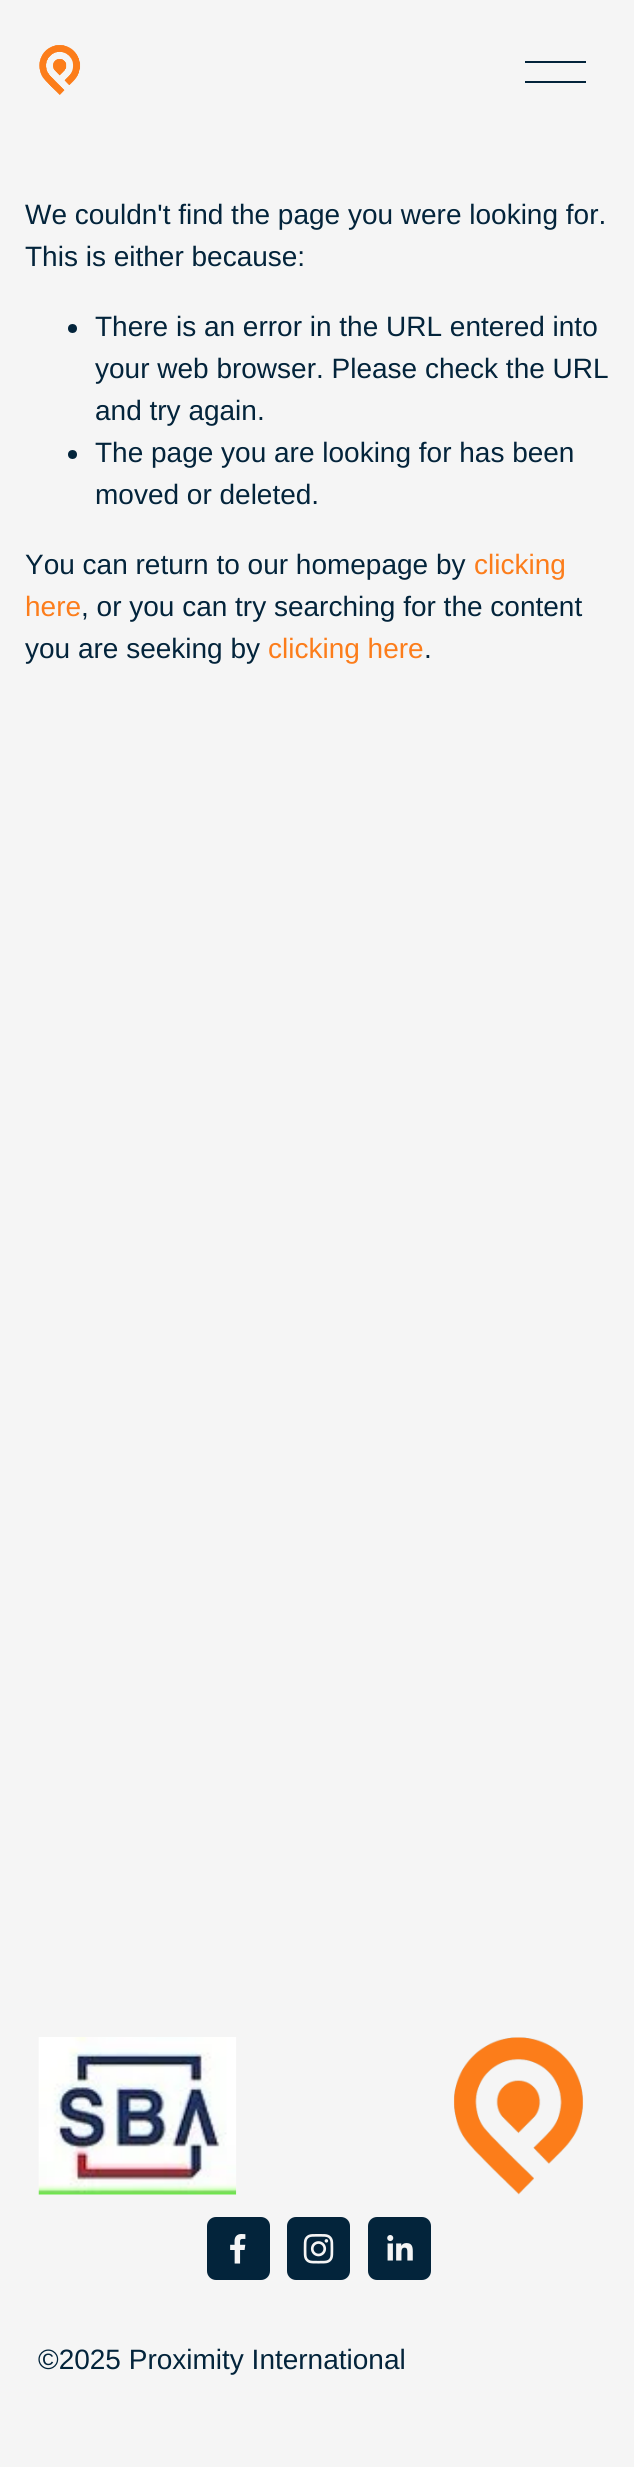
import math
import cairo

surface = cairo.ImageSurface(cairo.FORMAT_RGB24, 634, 2467)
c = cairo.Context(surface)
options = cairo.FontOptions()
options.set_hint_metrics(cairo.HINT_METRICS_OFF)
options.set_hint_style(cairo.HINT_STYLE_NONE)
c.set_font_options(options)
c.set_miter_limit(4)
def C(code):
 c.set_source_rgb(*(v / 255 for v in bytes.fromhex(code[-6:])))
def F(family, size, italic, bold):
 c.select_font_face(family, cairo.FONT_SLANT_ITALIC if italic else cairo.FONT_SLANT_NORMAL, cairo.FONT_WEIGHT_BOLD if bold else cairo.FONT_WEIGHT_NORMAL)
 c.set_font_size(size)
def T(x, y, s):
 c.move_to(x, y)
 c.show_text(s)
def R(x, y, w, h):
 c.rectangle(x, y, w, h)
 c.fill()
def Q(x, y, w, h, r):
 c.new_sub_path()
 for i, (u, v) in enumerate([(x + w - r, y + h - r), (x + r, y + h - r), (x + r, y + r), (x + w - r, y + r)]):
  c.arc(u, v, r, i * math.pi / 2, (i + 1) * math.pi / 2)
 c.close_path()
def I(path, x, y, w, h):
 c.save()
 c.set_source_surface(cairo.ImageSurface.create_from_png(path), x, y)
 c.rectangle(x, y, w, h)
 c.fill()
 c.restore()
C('f5f5f5')
c.paint()
I('1.png',39,45,42,50)
C('03243b')
R(525,61,61,2)
R(525,81,61,2)
F('Liberation Sans',28,0,0)
T(25,224,'We couldn\'t find the page you were looking for.')
T(25,266,'This is either because:')
c.new_path()
c.arc(72.5,328.5,4.5,0,2 * math.pi)
c.fill()
T(95,336,'There is an error in the URL entered into')
T(95,378,'your web browser. Please check the URL')
T(95,420,'and try again.')
c.new_path()
c.arc(72.5,454.5,4.5,0,2 * math.pi)
c.fill()
T(95,462,'The page you are looking for has been')
T(95,504,'moved or deleted.')
T(25,574,'You can return to our homepage by')
C('fc7d1b')
T(474,574,'clicking')
T(25,616,'here')
C('03243b')
T(81,616,', or you can try searching for the content')
T(25,658,'you are seeking by')
C('fc7d1b')
T(268,658,'clicking here')
C('03243b')
T(424,658,'.')
I('2.png',38,2037,199,158)
I('3.png',453,2037,131,158)
Q(207,2217,63,63,9)
c.fill()
I('4.png',230,2234,16,30)
Q(287,2217,63,63,9)
c.fill()
I('5.png',303,2234,31,30)
Q(368,2217,63,63,9)
c.fill()
I('6.png',387,2235,26,26)
T(38,2369,'©2025 Proximity International')
surface.write_to_png('o.png')
